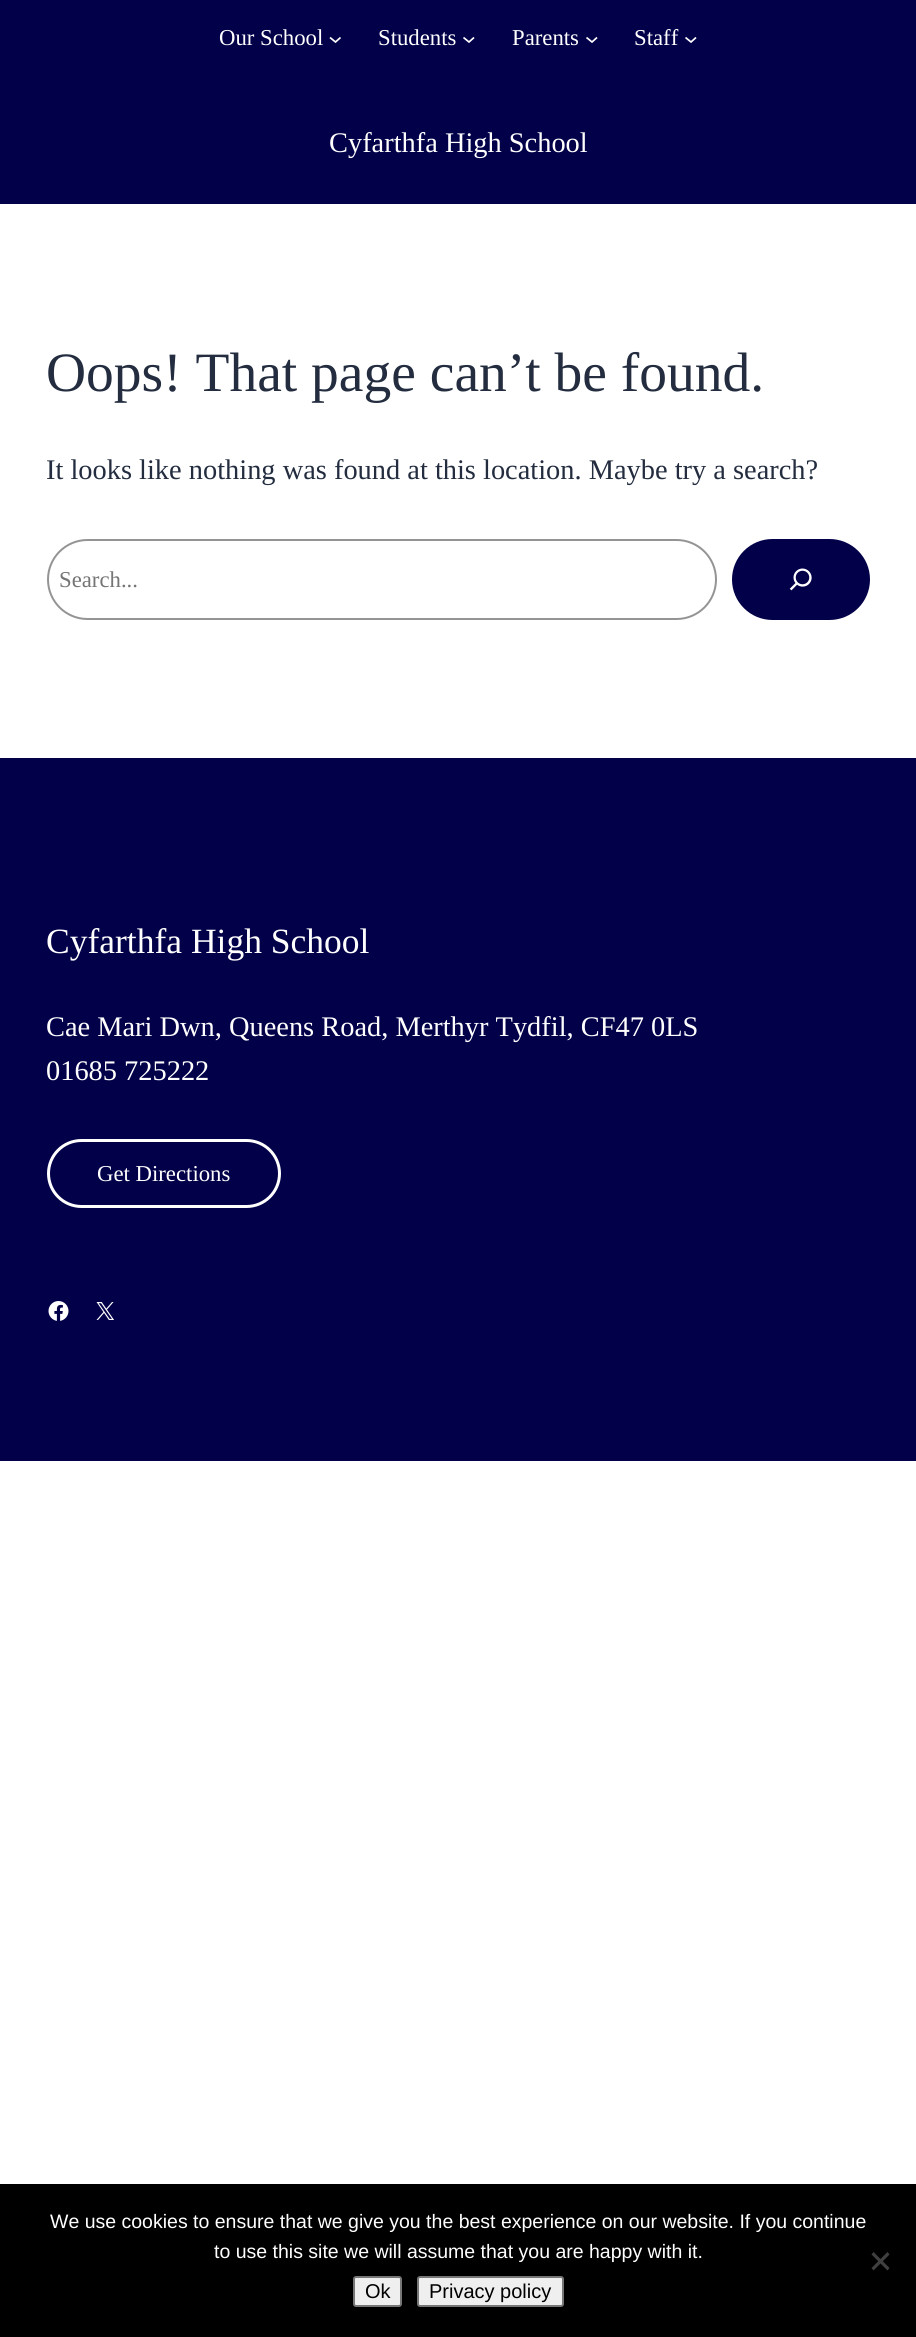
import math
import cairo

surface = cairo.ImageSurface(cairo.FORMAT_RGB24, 916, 2337)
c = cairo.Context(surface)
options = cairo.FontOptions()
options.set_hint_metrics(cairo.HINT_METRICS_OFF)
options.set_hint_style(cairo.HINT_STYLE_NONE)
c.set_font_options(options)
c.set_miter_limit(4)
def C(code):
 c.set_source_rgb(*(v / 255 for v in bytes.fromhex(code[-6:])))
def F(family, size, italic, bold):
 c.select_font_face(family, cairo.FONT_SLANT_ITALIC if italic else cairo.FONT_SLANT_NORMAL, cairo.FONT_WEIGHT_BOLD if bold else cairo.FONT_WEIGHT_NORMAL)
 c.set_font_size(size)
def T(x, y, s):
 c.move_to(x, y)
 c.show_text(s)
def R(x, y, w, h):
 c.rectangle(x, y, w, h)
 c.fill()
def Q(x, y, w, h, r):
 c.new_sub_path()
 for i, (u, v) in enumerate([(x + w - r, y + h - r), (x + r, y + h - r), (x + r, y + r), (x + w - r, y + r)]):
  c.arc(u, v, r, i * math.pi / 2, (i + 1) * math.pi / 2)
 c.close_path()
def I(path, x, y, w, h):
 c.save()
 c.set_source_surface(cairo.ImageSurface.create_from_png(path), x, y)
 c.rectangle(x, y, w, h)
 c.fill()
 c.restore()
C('ffffff')
c.paint()
C('020048')
R(0,0,916,204)
F('Liberation Serif',22.75,0,0)
C('ffffff')
T(219,45,'Our School')
c.new_path()
c.move_to(330,37.5)
c.line_to(335.5,42)
c.line_to(340.5,37.5)
c.set_line_width(1.7)
c.stroke()
T(378,45,'Students')
c.new_path()
c.move_to(463.5,37.5)
c.line_to(469,42)
c.line_to(474,37.5)
c.stroke()
T(512,45,'Parents')
c.new_path()
c.move_to(586.5,37.5)
c.line_to(592,42)
c.line_to(597,37.5)
c.stroke()
T(634,45,'Staff')
c.new_path()
c.move_to(685.5,37.5)
c.line_to(691,42)
c.line_to(696,37.5)
c.stroke()
F('Liberation Serif',28.4,0,0)
T(329,152,'Cyfarthfa High School')
F('Liberation Serif',55.5,0,0)
C('232d3f')
T(46,391,'Oops! That page can’t be found.')
F('Liberation Serif',28.4,0,0)
T(46,479,'It looks like nothing was found at this location. Maybe try a search?')
Q(48,540,668,79,39.5)
C('949494')
c.set_line_width(2)
c.stroke()
F('Liberation Serif',22.75,0,0)
C('757575')
T(59,587,'Search...')
C('020048')
Q(732,539,138,81,40.5)
c.fill()
I('1.png',789,568,23,23)
R(0,758,916,703)
F('Liberation Serif',35.5,0,0)
C('ffffff')
T(46,953,'Cyfarthfa High School')
F('Liberation Serif',28.4,0,0)
T(46,1036,'Cae Mari Dwn, Queens Road, Merthyr Tydfil, CF47 0LS')
T(46,1080,'01685 725222')
Q(48.5,1140.5,231,66,33)
c.set_line_width(3)
c.stroke()
F('Liberation Serif',22.75,0,0)
T(97,1181,'Get Directions')
I('2.png',48,1301,21,20)
I('3.png',96,1302,18,18)
C('000000')
R(0,2184,916,153)
F('Liberation Sans',19.5,0,0)
C('ffffff')
T(50,2228,'We use cookies to ensure that we give you the best experience on our website. If you continue')
T(214,2258,'to use this site we will assume that you are happy with it.')
C('404040')
c.new_path()
c.move_to(887.5,2252)
c.line_to(889.5,2254.5)
c.line_to(873.5,2270.5)
c.line_to(871.5,2268)
c.close_path()
c.fill()
c.new_path()
c.move_to(871.5,2254.5)
c.line_to(873.5,2252)
c.line_to(889.5,2268)
c.line_to(887.5,2270.5)
c.close_path()
c.fill()
C('efefef')
Q(354,2277,47,29,2)
c.fill_preserve()
C('767676')
c.set_line_width(2)
c.stroke()
F('Liberation Sans',20,0,0)
C('000000')
T(365,2298,'Ok')
C('efefef')
Q(418,2277,145,29,2)
c.fill_preserve()
C('767676')
c.stroke()
C('000000')
T(429,2298,'Privacy policy')
surface.write_to_png('o.png')
